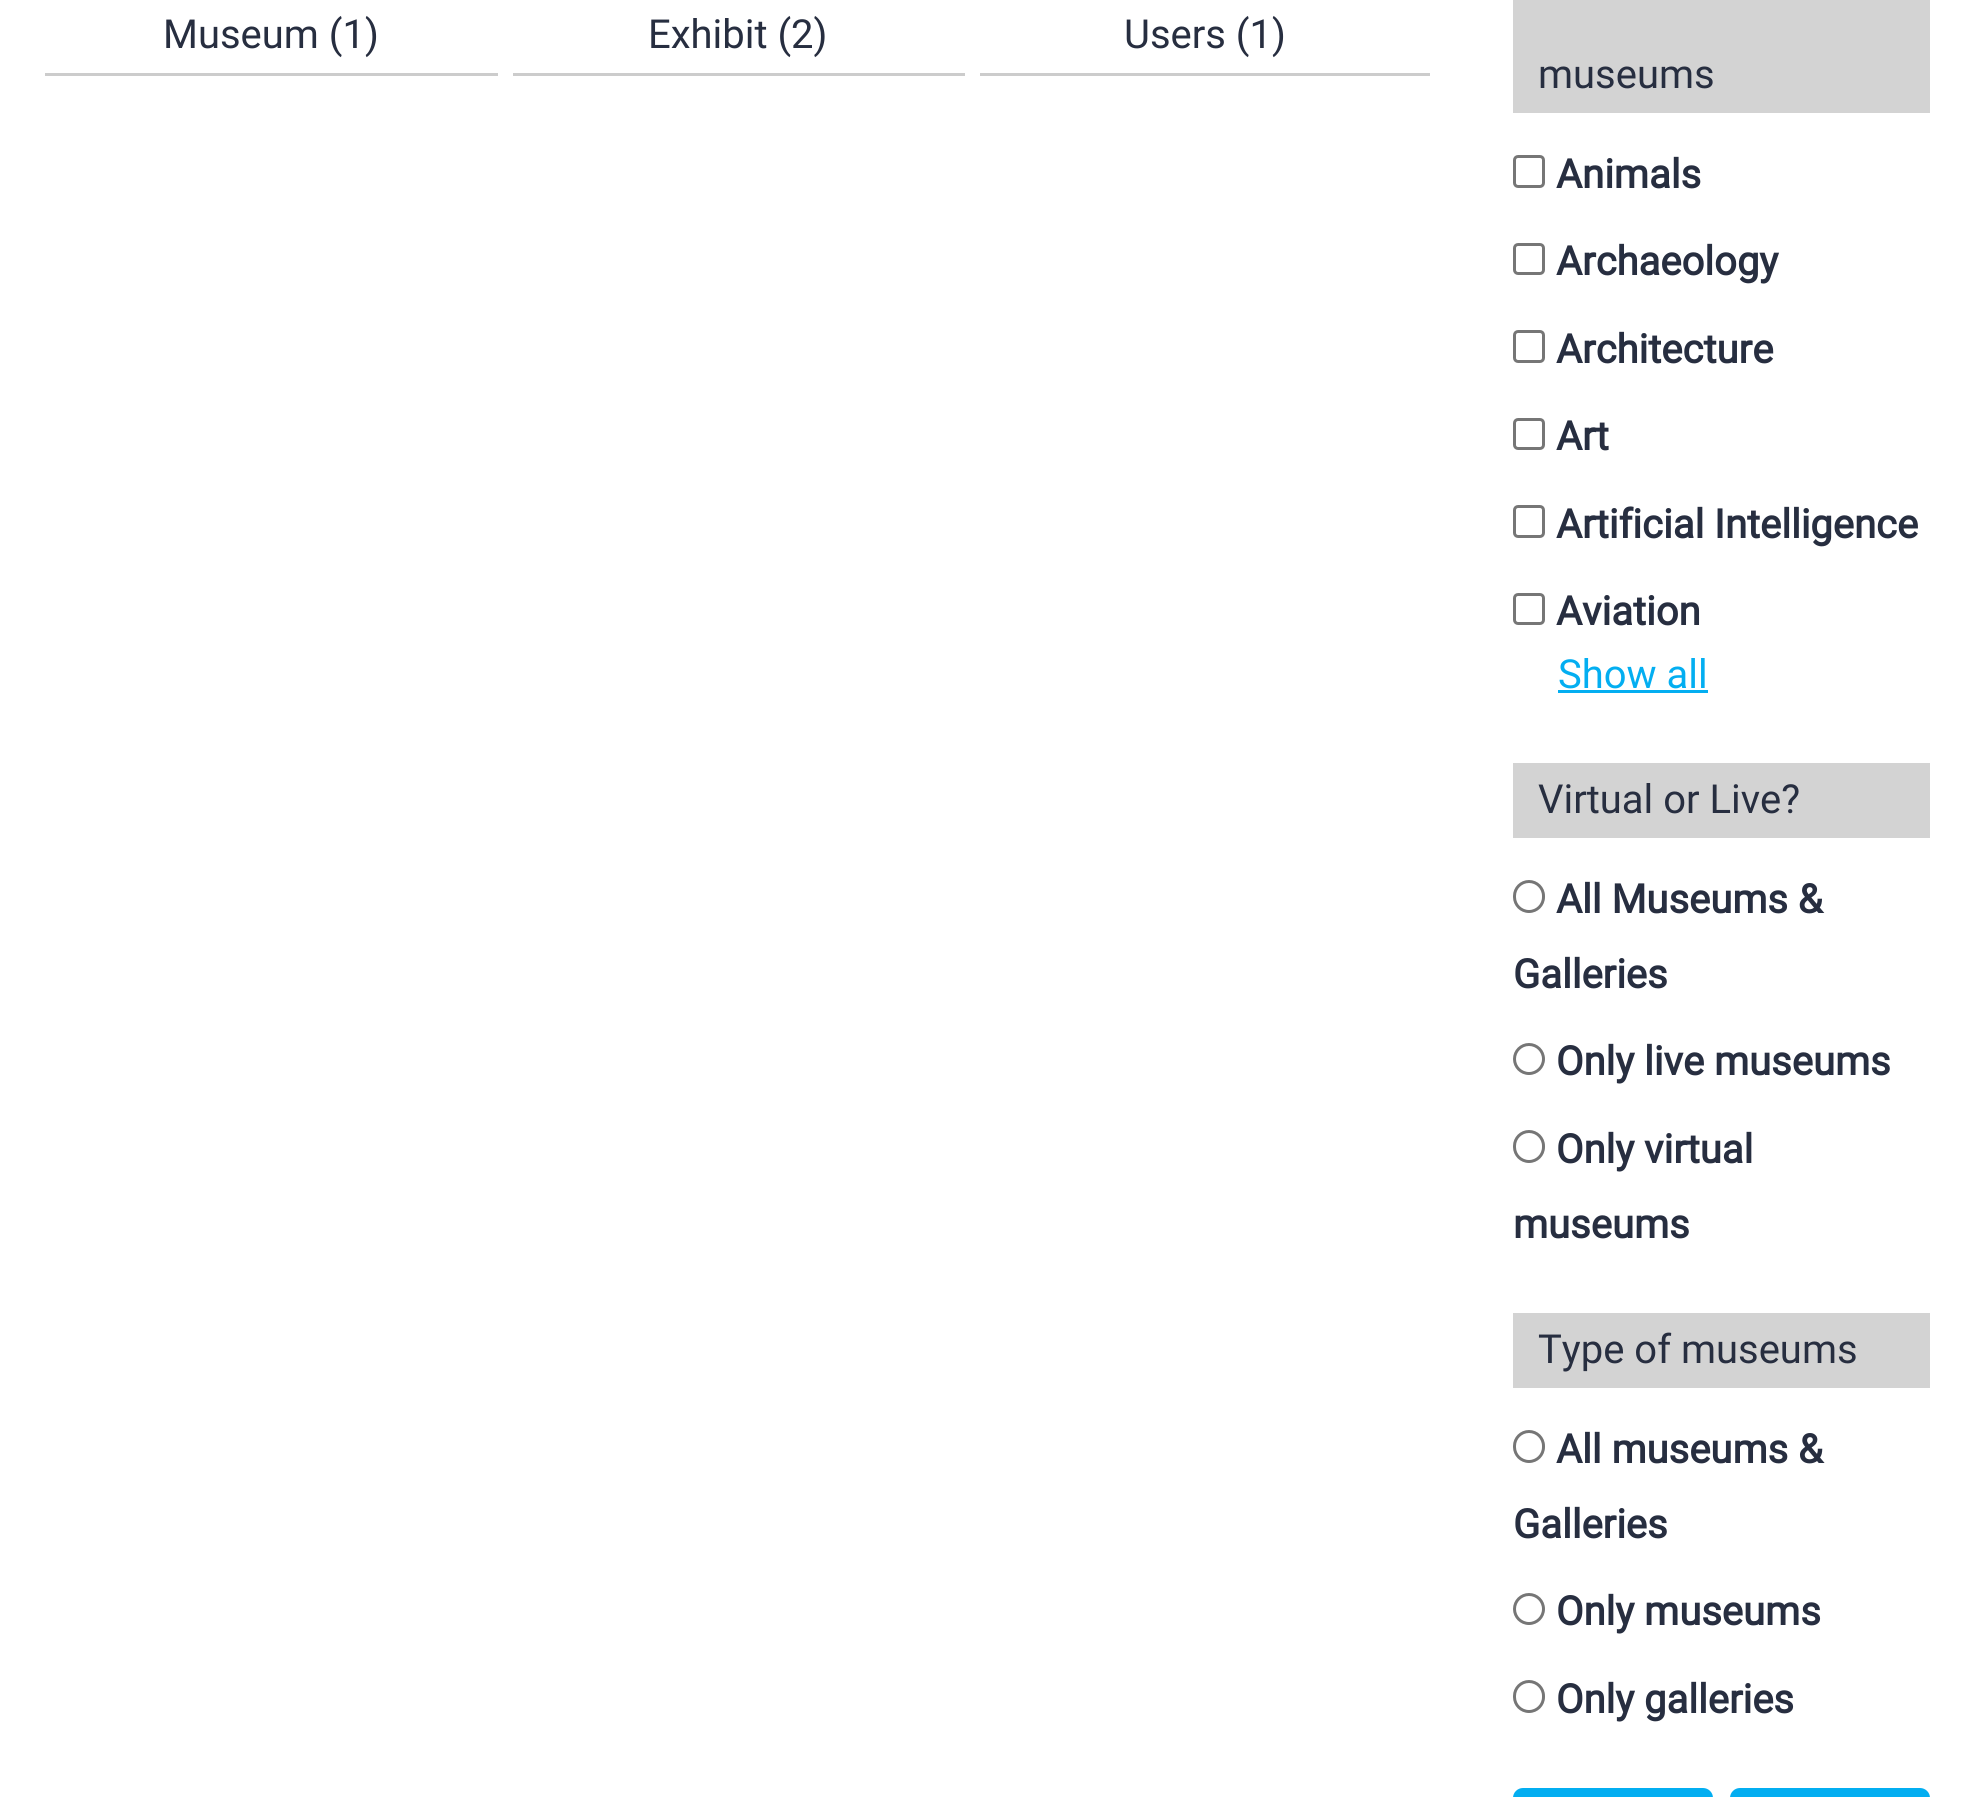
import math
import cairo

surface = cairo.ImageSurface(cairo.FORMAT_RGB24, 1967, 1797)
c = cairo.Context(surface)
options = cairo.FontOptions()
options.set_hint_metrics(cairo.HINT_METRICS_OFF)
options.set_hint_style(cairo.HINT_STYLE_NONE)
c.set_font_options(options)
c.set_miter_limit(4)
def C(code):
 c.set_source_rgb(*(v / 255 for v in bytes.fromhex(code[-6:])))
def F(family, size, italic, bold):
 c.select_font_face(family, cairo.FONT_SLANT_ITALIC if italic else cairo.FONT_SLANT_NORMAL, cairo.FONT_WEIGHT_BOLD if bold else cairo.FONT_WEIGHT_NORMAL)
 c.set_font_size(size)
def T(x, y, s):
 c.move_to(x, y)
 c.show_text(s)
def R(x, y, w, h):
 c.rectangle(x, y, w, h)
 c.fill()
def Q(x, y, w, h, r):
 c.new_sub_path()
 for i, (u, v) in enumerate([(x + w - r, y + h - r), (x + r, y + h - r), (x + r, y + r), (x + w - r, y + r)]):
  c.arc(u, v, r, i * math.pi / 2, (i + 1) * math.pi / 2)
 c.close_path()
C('ffffff')
c.paint()
C('cccccc')
R(45,73,453,3)
F('Roboto',40,0,0)
C('272e40')
T(163,48,'Museum (1)')
C('cccccc')
R(513,73,452,3)
C('272e40')
T(648,48,'Exhibit (2)')
C('cccccc')
R(980,73,450,3)
C('272e40')
T(1124,48,'Users (1)')
C('d3d3d3')
R(1513,0,417,113)
C('272e40')
T(1538,88,'museums')
Q(1514.5,156.5,29,30,3.5)
C('767676')
c.set_line_width(3)
c.stroke()
F('Roboto',40,0,1)
C('272e40')
T(1556,188,'Animals')
Q(1514.5,244.5,29,29,3.5)
C('767676')
c.stroke()
C('272e40')
T(1556,275,'Archaeology')
Q(1514.5,331.5,29,30,3.5)
C('767676')
c.stroke()
C('272e40')
T(1556,363,'Architecture')
Q(1514.5,419.5,29,29,3.5)
C('767676')
c.stroke()
C('272e40')
T(1556,450,'Art')
Q(1514.5,506.5,29,30,3.5)
C('767676')
c.stroke()
C('272e40')
T(1556,538,'Artificial Intelligence')
Q(1514.5,594.5,29,29,3.5)
C('767676')
c.stroke()
C('272e40')
T(1556,625,'Aviation')
F('Roboto',40,0,0)
C('03aef1')
T(1558,688,'Show all')
R(1558,690,150,3)
C('d3d3d3')
R(1513,763,417,75)
C('272e40')
T(1538,813,'Virtual or Live?')
Q(1514.5,881.5,29,30,14.5)
C('767676')
c.stroke()
F('Roboto',40,0,1)
C('272e40')
T(1556,913,'All Museums &')
T(1513,988,'Galleries')
c.new_path()
c.arc(1529,1059,14.5,0,2 * math.pi)
C('767676')
c.stroke()
C('272e40')
T(1556,1075,'Only live museums')
Q(1514.5,1131.5,29,30,14.5)
C('767676')
c.stroke()
C('272e40')
T(1556,1163,'Only virtual')
T(1513,1238,'museums')
C('d3d3d3')
R(1513,1313,417,75)
F('Roboto',40,0,0)
C('272e40')
T(1538,1363,'Type of museums')
Q(1514.5,1431.5,29,30,14.5)
C('767676')
c.stroke()
F('Roboto',40,0,1)
C('272e40')
T(1556,1463,'All museums &')
T(1513,1538,'Galleries')
c.new_path()
c.arc(1529,1609,14.5,0,2 * math.pi)
C('767676')
c.stroke()
C('272e40')
T(1556,1625,'Only museums')
Q(1514.5,1681.5,29,30,14.5)
C('767676')
c.stroke()
C('272e40')
T(1556,1713,'Only galleries')
C('03aef1')
Q(1514.5,1789.5,197,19,8.5)
c.fill_preserve()
c.stroke()
Q(1731.5,1789.5,197,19,8.5)
c.fill_preserve()
c.stroke()
surface.write_to_png('o.png')
